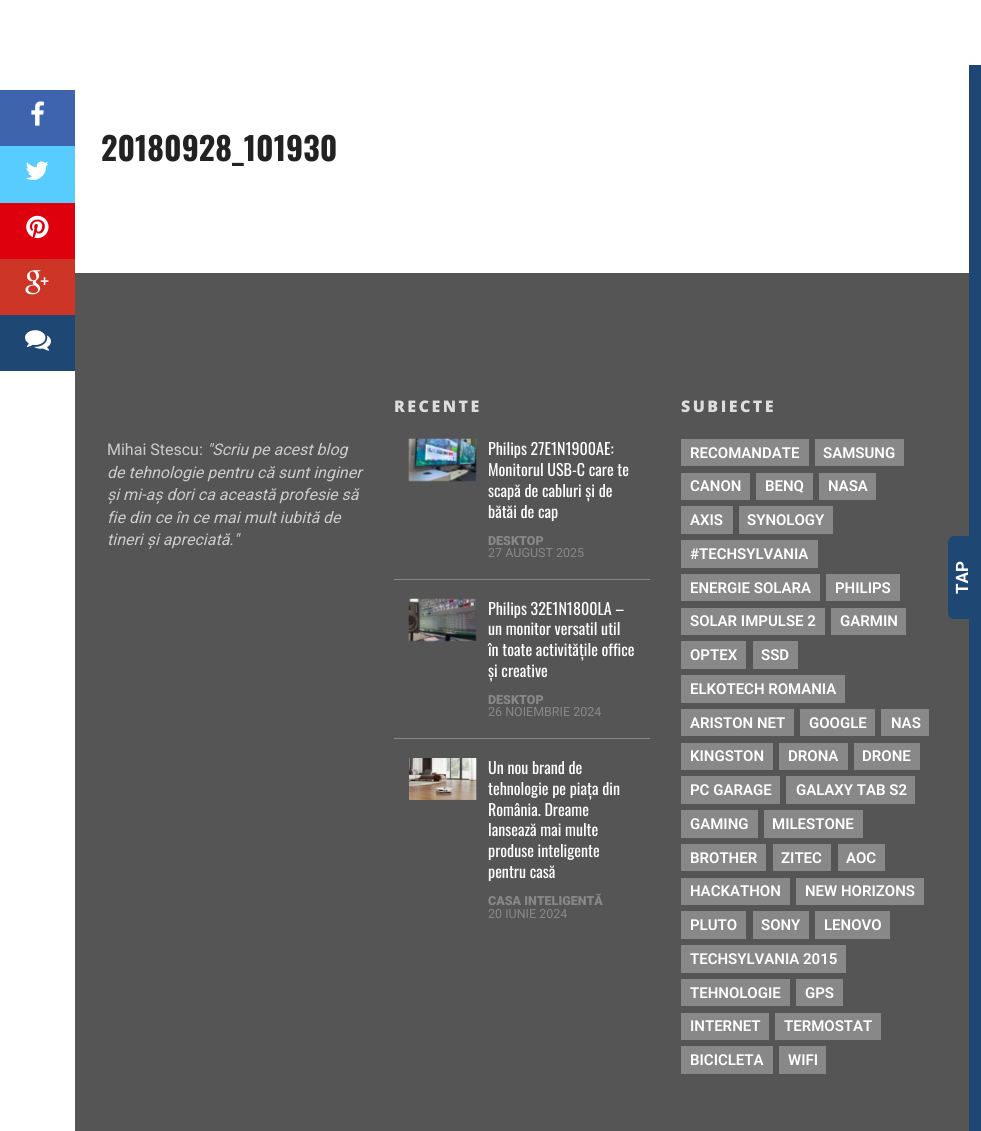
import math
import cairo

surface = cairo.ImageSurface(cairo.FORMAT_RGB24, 981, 1131)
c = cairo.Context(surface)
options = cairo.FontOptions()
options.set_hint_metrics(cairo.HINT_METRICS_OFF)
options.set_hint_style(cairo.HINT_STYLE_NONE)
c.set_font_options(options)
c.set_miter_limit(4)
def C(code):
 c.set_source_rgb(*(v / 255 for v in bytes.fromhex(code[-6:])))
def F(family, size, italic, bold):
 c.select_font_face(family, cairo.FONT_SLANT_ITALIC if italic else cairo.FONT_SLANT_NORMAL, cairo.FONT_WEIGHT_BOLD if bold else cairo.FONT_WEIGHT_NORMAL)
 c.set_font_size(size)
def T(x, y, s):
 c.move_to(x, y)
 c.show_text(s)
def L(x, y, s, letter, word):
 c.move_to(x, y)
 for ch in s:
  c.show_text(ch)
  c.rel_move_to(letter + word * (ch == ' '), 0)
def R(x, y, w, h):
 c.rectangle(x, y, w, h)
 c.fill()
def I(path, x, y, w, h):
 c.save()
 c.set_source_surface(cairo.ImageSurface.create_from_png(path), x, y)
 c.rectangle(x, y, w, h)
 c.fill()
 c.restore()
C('ffffff')
c.paint()
C('3e64ad')
R(0,90,75,56)
I('1.png',31,101,13,25)
C('58ccff')
R(0,146,75,57)
I('2.png',26,161,23,19)
C('de010d')
R(0,203,75,56)
I('3.png',26,215,23,24)
C('cd3627')
R(0,259,75,56)
I('4.png',25,270,24,25)
C('1f4773')
R(0,315,75,56)
I('5.png',25,330,26,21)
c.save()
c.rectangle(101,128,842,38)
c.clip()
F('Oswald',32,0,1)
C('222222')
T(101,161,'20180928_101930')
c.restore()
C('555555')
R(75,273,894,858)
F('Roboto',16,0,0)
C('cccccc')
T(107,455,'Mihai Stescu:')
F('Roboto',16,1,0)
T(207,455,'"Scriu pe acest blog')
T(107,478,'de tehnologie pentru că sunt inginer')
T(107,500,'și mi-aș dori ca această profesie să')
T(107,523,'fie din ce în ce mai mult iubită de')
T(107,545,'tineri și apreciată."')
F('Open Sans ExtraBold',16,0,0)
C('dddddd')
L(394,412,'RECENTE',2.5,0)
I('6.png',408,438,69,44)
F('Oswald',16,0,0)
C('ffffff')
T(488,455,'Philips 27E1N1900AE:')
T(488,476,'Monitorul USB-C care te')
T(488,497,'scapă de cabluri și de')
T(488,518,'bătăi de cap')
F('Roboto Black',12.5,0,0)
C('888888')
T(488,545,'DESKTOP')
F('Roboto',12.5,0,0)
T(488,557,'27 AUGUST 2025')
R(394,579,256,1)
I('7.png',408,598,69,44)
F('Oswald',16,0,0)
C('ffffff')
T(488,615,'Philips 32E1N1800LA –')
T(488,635,'un monitor versatil util')
T(488,656,'în toate activitățile office')
T(488,677,'și creative')
F('Roboto Black',12.5,0,0)
C('888888')
T(488,704,'DESKTOP')
F('Roboto',12.5,0,0)
T(488,716,'26 NOIEMBRIE 2024')
R(394,738,256,1)
I('8.png',409,758,68,42)
F('Oswald',16,0,0)
C('ffffff')
T(488,774,'Un nou brand de')
T(488,795,'tehnologie pe piața din')
T(488,816,'România. Dreame')
T(488,836,'lansează mai multe')
T(488,857,'produse inteligente')
T(488,878,'pentru casă')
F('Roboto Black',12.5,0,0)
C('888888')
T(488,905,'CASA INTELIGENTĂ')
F('Roboto',12.5,0,0)
T(488,918,'20 IUNIE 2024')
F('Open Sans ExtraBold',16,0,0)
C('dddddd')
L(681,412,'SUBIECTE',2.5,0)
C('888888')
R(681,439,128,27)
F('Roboto SemiBold',15,0,0)
C('ffffff')
T(690,458,'RECOMANDATE')
C('888888')
R(815,439,89,27)
C('ffffff')
T(823,458,'SAMSUNG')
C('888888')
R(681,473,69,27)
C('ffffff')
T(690,491,'CANON')
C('888888')
R(756,473,57,27)
C('ffffff')
T(765,491,'BENQ')
C('888888')
R(819,473,57,27)
C('ffffff')
T(828,491,'NASA')
C('888888')
R(681,506,52,28)
C('ffffff')
T(690,525,'AXIS')
C('888888')
R(739,506,94,28)
C('ffffff')
T(747,525,'SYNOLOGY')
C('888888')
R(681,540,137,28)
C('ffffff')
T(690,559,'#TECHSYLVANIA')
C('888888')
R(681,574,139,27)
C('ffffff')
T(690,593,'ENERGIE SOLARA')
C('888888')
R(826,574,74,27)
C('ffffff')
T(835,593,'PHILIPS')
C('888888')
R(681,608,144,27)
C('ffffff')
T(690,626,'SOLAR IMPULSE 2')
C('888888')
R(831,608,75,27)
C('ffffff')
T(840,626,'GARMIN')
C('888888')
R(681,641,65,28)
C('ffffff')
T(690,660,'OPTEX')
C('888888')
R(753,641,45,28)
C('ffffff')
T(761,660,'SSD')
C('888888')
R(681,675,164,28)
C('ffffff')
T(690,694,'ELKOTECH ROMANIA')
C('888888')
R(681,709,113,27)
C('ffffff')
T(690,728,'ARISTON NET')
C('888888')
R(800,709,75,27)
C('ffffff')
T(809,728,'GOOGLE')
C('888888')
R(881,709,48,27)
C('ffffff')
T(891,728,'NAS')
C('888888')
R(681,743,92,27)
C('ffffff')
T(690,761,'KINGSTON')
C('888888')
R(779,743,69,27)
C('ffffff')
T(788,761,'DRONA')
C('888888')
R(854,743,66,27)
C('ffffff')
T(862,761,'DRONE')
C('888888')
R(681,776,99,28)
C('ffffff')
T(690,795,'PC GARAGE')
C('888888')
R(786,776,129,28)
C('ffffff')
T(796,795,'GALAXY TAB S2')
C('888888')
R(681,810,77,28)
C('ffffff')
T(690,829,'GAMING')
C('888888')
R(764,810,99,28)
C('ffffff')
T(772,829,'MILESTONE')
C('888888')
R(681,844,85,27)
C('ffffff')
T(690,863,'BROTHER')
C('888888')
R(773,844,58,27)
C('ffffff')
T(781,863,'ZITEC')
C('888888')
R(838,844,47,27)
C('ffffff')
T(846,863,'AOC')
C('888888')
R(681,878,109,27)
C('ffffff')
T(690,896,'HACKATHON')
C('888888')
R(796,878,128,27)
C('ffffff')
T(805,896,'NEW HORIZONS')
C('888888')
R(681,911,65,28)
C('ffffff')
T(690,930,'PLUTO')
C('888888')
R(753,911,56,28)
C('ffffff')
T(761,930,'SONY')
C('888888')
R(815,911,75,28)
C('ffffff')
T(824,930,'LENOVO')
C('888888')
R(681,945,165,28)
C('ffffff')
T(690,964,'TECHSYLVANIA 2015')
C('888888')
R(681,979,109,27)
C('ffffff')
T(690,998,'TEHNOLOGIE')
C('888888')
R(796,979,47,27)
C('ffffff')
T(805,998,'GPS')
C('888888')
R(681,1013,88,27)
C('ffffff')
T(690,1031,'INTERNET')
C('888888')
R(775,1013,106,27)
C('ffffff')
T(784,1031,'TERMOSTAT')
C('888888')
R(681,1046,92,28)
C('ffffff')
T(690,1065,'BICICLETA')
C('888888')
R(779,1046,47,28)
C('ffffff')
T(788,1065,'WIFI')
C('1f4773')
R(969,65,12,1066)
c.new_path()
c.move_to(948,613)
c.line_to(948,543)
c.curve_to(948,539,951,536,954,536)
c.line_to(971,536)
c.curve_to(975,536,977,539,977,543)
c.line_to(977,613)
c.curve_to(977,617,975,619,971,619)
c.line_to(954,619)
c.curve_to(951,619,948,617,948,613)
c.close_path()
c.fill()
F('Roboto',17,0,1)
C('ffffff')
c.save()
c.translate(968,594)
c.rotate(-90 * math.pi / 180)
T(0,0,'TAP')
c.restore()
surface.write_to_png('o.png')
